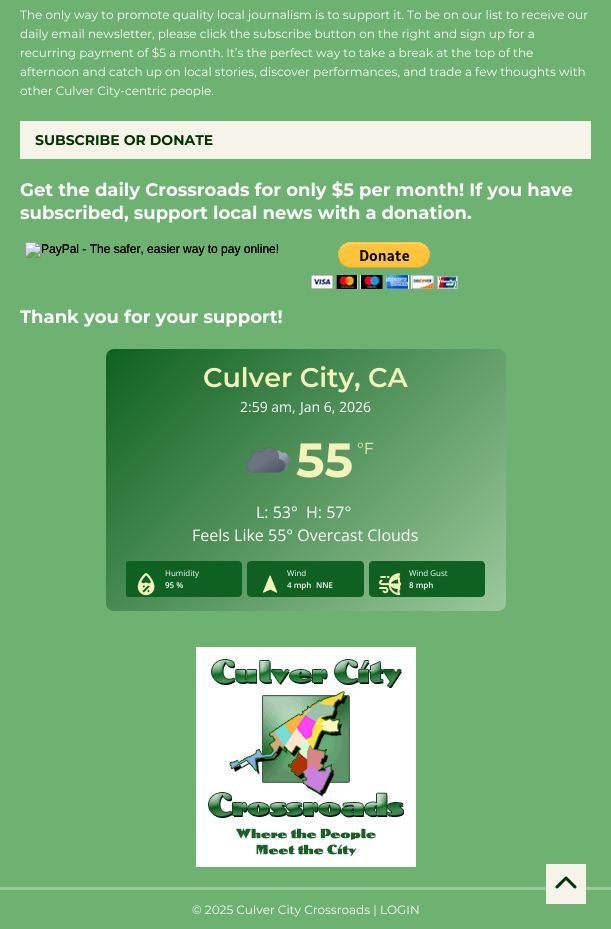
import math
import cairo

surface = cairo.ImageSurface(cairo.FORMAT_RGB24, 611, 929)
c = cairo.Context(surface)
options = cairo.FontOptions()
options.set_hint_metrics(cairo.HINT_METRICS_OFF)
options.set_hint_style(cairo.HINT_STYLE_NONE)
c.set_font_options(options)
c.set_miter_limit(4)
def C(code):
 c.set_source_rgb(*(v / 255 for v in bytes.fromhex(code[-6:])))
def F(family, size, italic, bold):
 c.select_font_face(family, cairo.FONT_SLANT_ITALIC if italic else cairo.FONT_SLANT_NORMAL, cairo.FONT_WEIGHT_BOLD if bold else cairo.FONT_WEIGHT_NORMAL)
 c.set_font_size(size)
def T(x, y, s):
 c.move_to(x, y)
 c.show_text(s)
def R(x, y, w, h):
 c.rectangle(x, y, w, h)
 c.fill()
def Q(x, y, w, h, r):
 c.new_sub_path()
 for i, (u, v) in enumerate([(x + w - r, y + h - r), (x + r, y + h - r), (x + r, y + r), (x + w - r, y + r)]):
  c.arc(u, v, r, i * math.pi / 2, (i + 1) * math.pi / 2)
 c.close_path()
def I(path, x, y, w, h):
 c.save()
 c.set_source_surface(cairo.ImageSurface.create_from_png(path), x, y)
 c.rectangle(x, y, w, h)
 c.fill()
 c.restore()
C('6eb272')
c.paint()
F('Montserrat',12,0,0)
C('ffffff')
T(20,19,'The only way to promote quality local journalism is to support it. To be on our list to receive our')
T(20,38,'daily email newsletter, please click the subscribe button on the right and sign up for a')
T(20,57,'recurring payment of $5 a month. It’s the perfect way to take a break at the top of the')
T(20,76,'afternoon and catch up on local stories, discover performances, and trade a few thoughts with')
T(20,95,'other Culver City-centric people.')
C('f6f4ea')
R(20,121,571,38)
F('Montserrat',14,0,1)
C('003400')
T(35,145,'SUBSCRIBE OR DONATE')
F('Montserrat',18,0,1)
C('ffffff')
T(20,196,'Get the daily Crossroads for only $5 per month! If you have')
T(20,219,'subscribed, support local news with a donation.')
I('1.png',25,242,253,16)
F('Liberation Sans',12,0,0)
C('000000')
T(41,253,'PayPal - The safer, easier way to pay online!')
I('2.png',311,242,147,47)
F('Montserrat',18,0,1)
C('ffffff')
T(20,323,'Thank you for your support!')
gradient = cairo.LinearGradient(140,315,472,646)
gradient.add_color_stop_rgba(0,0.055,0.38,0.125,1)
gradient.add_color_stop_rgba(1,0.612,0.788,0.612,1)
c.set_source(gradient)
Q(106,349,400,262,8)
c.fill()
F('Montserrat SemiBold',27,0,0)
C('f4f3ba')
T(203,387,'Culver City, CA')
F('Open Sans',14,0,0)
C('ffffff')
T(240,412,'2:59 am,')
T(300,412,'Jan 6, 2026')
I('3.png',246,447,45,26)
F('Montserrat',48,0,1)
C('f4f3ba')
T(296,477,'55')
F('Montserrat',16,0,0)
T(357,454,'°F')
F('Open Sans',16,0,0)
C('ffffff')
T(256,518,'L: 53°')
T(306,518,'H: 57°')
T(192,541,'Feels Like 55° Overcast Clouds')
c.save()
c.rectangle(126,561,360,36)
c.clip()
C('0e6120')
Q(125,561,117,36,4)
c.fill()
c.restore()
I('4.png',137,573,18,23)
F('Open Sans',8,0,0)
T(165,576,'Humidity')
F('Open Sans SemiBold',8,0,0)
T(165,588,'95 %')
C('0e6120')
Q(247,561,117,36,4)
c.fill()
F('Open Sans',8,0,0)
C('ffffff')
T(287,576,'Wind')
I('5.png',262,575,16,18)
F('Open Sans SemiBold',8,0,0)
T(287,588,'4 mph')
T(316,588,'NNE')
C('0e6120')
Q(369,561,116,36,4)
c.fill()
I('6.png',379,573,23,23)
F('Open Sans',8,0,0)
C('ffffff')
T(409,576,'Wind Gust')
F('Open Sans SemiBold',8,0,0)
T(409,588,'8 mph')
I('7.png',196,647,220,220)
C('9ac99c')
R(0,887,611,3)
C('f6f4ea')
R(546,864,40,40)
I('8.png',555,876,22,13)
F('Montserrat',12,0,0)
C('ffffff')
T(192,914,'© 2025 Culver City Crossroads | LOGIN')
surface.write_to_png('o.png')
